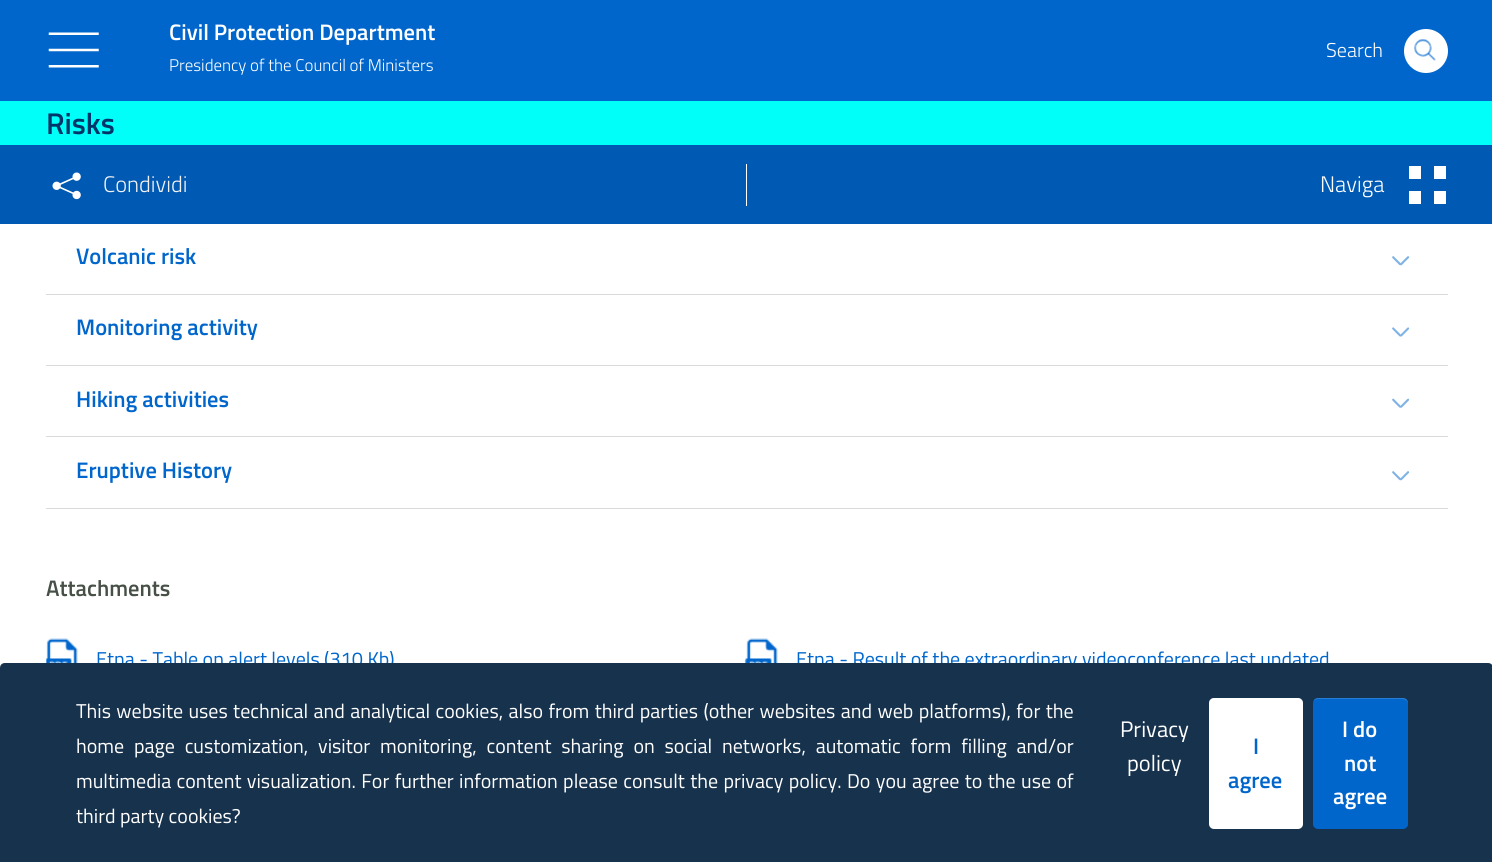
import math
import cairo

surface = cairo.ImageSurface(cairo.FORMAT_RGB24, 1492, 862)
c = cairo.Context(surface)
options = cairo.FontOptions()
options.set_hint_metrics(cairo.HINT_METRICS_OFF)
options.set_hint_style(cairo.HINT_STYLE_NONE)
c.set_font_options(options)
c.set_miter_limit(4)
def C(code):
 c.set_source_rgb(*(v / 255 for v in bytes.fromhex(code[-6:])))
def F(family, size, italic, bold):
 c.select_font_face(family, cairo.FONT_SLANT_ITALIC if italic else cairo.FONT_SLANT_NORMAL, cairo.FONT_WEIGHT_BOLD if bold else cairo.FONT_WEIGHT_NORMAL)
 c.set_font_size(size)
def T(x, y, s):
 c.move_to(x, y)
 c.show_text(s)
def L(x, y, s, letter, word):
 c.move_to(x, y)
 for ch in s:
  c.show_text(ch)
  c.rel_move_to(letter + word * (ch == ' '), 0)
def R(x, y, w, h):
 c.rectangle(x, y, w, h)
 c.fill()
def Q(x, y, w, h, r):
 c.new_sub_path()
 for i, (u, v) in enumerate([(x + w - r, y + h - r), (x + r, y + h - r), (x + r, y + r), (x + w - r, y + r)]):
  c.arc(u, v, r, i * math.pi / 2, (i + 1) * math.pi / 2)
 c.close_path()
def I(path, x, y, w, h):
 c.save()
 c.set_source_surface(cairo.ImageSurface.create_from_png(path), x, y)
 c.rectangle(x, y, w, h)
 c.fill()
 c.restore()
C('ffffff')
c.paint()
C('0066cc')
R(0,0,1492,101)
I('1.png',48,32,51,36)
F('Titillium Web SemiBold',22.5,0,0)
C('ffffff')
T(169,40,'Civil Protection Department')
F('Titillium Web Light',16.9,0,0)
T(169,71,'Presidency of the Council of Ministers')
F('Titillium Web Light',20,0,0)
T(1326,57,'Search')
c.new_path()
c.arc(1426,51,22,0,2 * math.pi)
c.fill()
I('2.png',1414,39,22,22)
C('00fff8')
R(0,101,1492,44)
F('Titillium Web SemiBold',30,0,0)
C('003569')
T(46,134,'Risks')
C('0059b3')
R(0,145,1492,79)
I('3.png',52,172,29,28)
F('Titillium Web Light',22.5,0,0)
C('f2f2f2')
T(103,192,'Condividi')
C('ffffff')
R(746,164,1,42)
T(1320,192,'Naviga')
R(1409,166,12,13)
R(1434,166,12,13)
R(1409,191,12,13)
R(1434,191,12,13)
C('dadada')
R(46,508,1402,1)
F('Titillium Web SemiBold',22.5,0,0)
C('0066cc')
T(76,264,'Volcanic risk')
I('4.png',1392,256,18,10)
C('dadada')
R(46,294,1402,1)
C('0066cc')
T(76,335,'Monitoring activity')
I('5.png',1392,327,18,10)
C('dadada')
R(46,365,1402,1)
C('0066cc')
T(76,407,'Hiking activities')
I('6.png',1392,398,18,10)
C('dadada')
R(46,436,1402,1)
C('0066cc')
T(76,478,'Eruptive History')
I('4.png',1392,471,18,10)
C('475047')
T(46,596,'Attachments')
I('7.png',46,638,32,25)
F('Titillium Web',20,0,0)
C('0066cc')
T(96,666,'Etna - Table on alert levels (310 Kb)')
I('8.png',744,638,34,25)
T(796,666,'Etna - Result of the extraordinary videoconference last updated')
C('17324d')
c.new_path()
c.move_to(5,663)
c.line_to(1488,663)
c.curve_to(1491,663,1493,665,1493,668)
c.line_to(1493,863)
c.line_to(0,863)
c.line_to(0,668)
c.curve_to(0,665,2,663,5,663)
c.close_path()
c.fill()
C('ffffff')
L(76,718,'This website uses technical and analytical cookies, also from third parties (other websites and web platforms), for the',0,1)
L(76,753,'home page customization, visitor monitoring, content sharing on social networks, automatic form filling and/or',0,5.4)
L(76,788,'multimedia content visualization. For further information please consult the privacy policy. Do you agree to the use of',0,1)
T(76,823,'third party cookies?')
F('Titillium Web',22.5,0,0)
T(1120,737,'Privacy')
T(1127,771,'policy')
Q(1209,698,94,131,5)
c.fill()
c.set_source_rgba(1,1,1,0.15)
c.new_path()
c.move_to(1214,699)
c.line_to(1298,699)
c.curve_to(1300,699,1302,701,1302,704)
c.line_to(1302,825)
c.line_to(1301,828)
c.curve_to(1302,827,1303,825,1303,824)
c.line_to(1303,703)
c.curve_to(1303,700,1301,698,1298,698)
c.line_to(1214,698)
c.curve_to(1211,698,1209,700,1209,703)
c.line_to(1209,704)
c.curve_to(1209,701,1211,699,1214,699)
c.close_path()
c.fill()
F('Titillium Web SemiBold',22.5,0,0)
C('0066cc')
T(1253,754,'I')
T(1228,788,'agree')
Q(1313,698,95,131,5)
c.fill()
c.set_source_rgba(1,1,1,0.15)
c.new_path()
c.move_to(1318,699)
c.line_to(1402,699)
c.curve_to(1405,699,1408,701,1408,704)
c.line_to(1408,703)
c.curve_to(1408,700,1406,698,1403,698)
c.line_to(1318,698)
c.curve_to(1316,698,1314,699,1314,701)
c.curve_to(1315,700,1316,699,1318,699)
c.close_path()
c.fill()
C('ffffff')
T(1342,737,'I do')
T(1344,771,'not')
T(1333,804,'agree')
surface.write_to_png('o.png')
